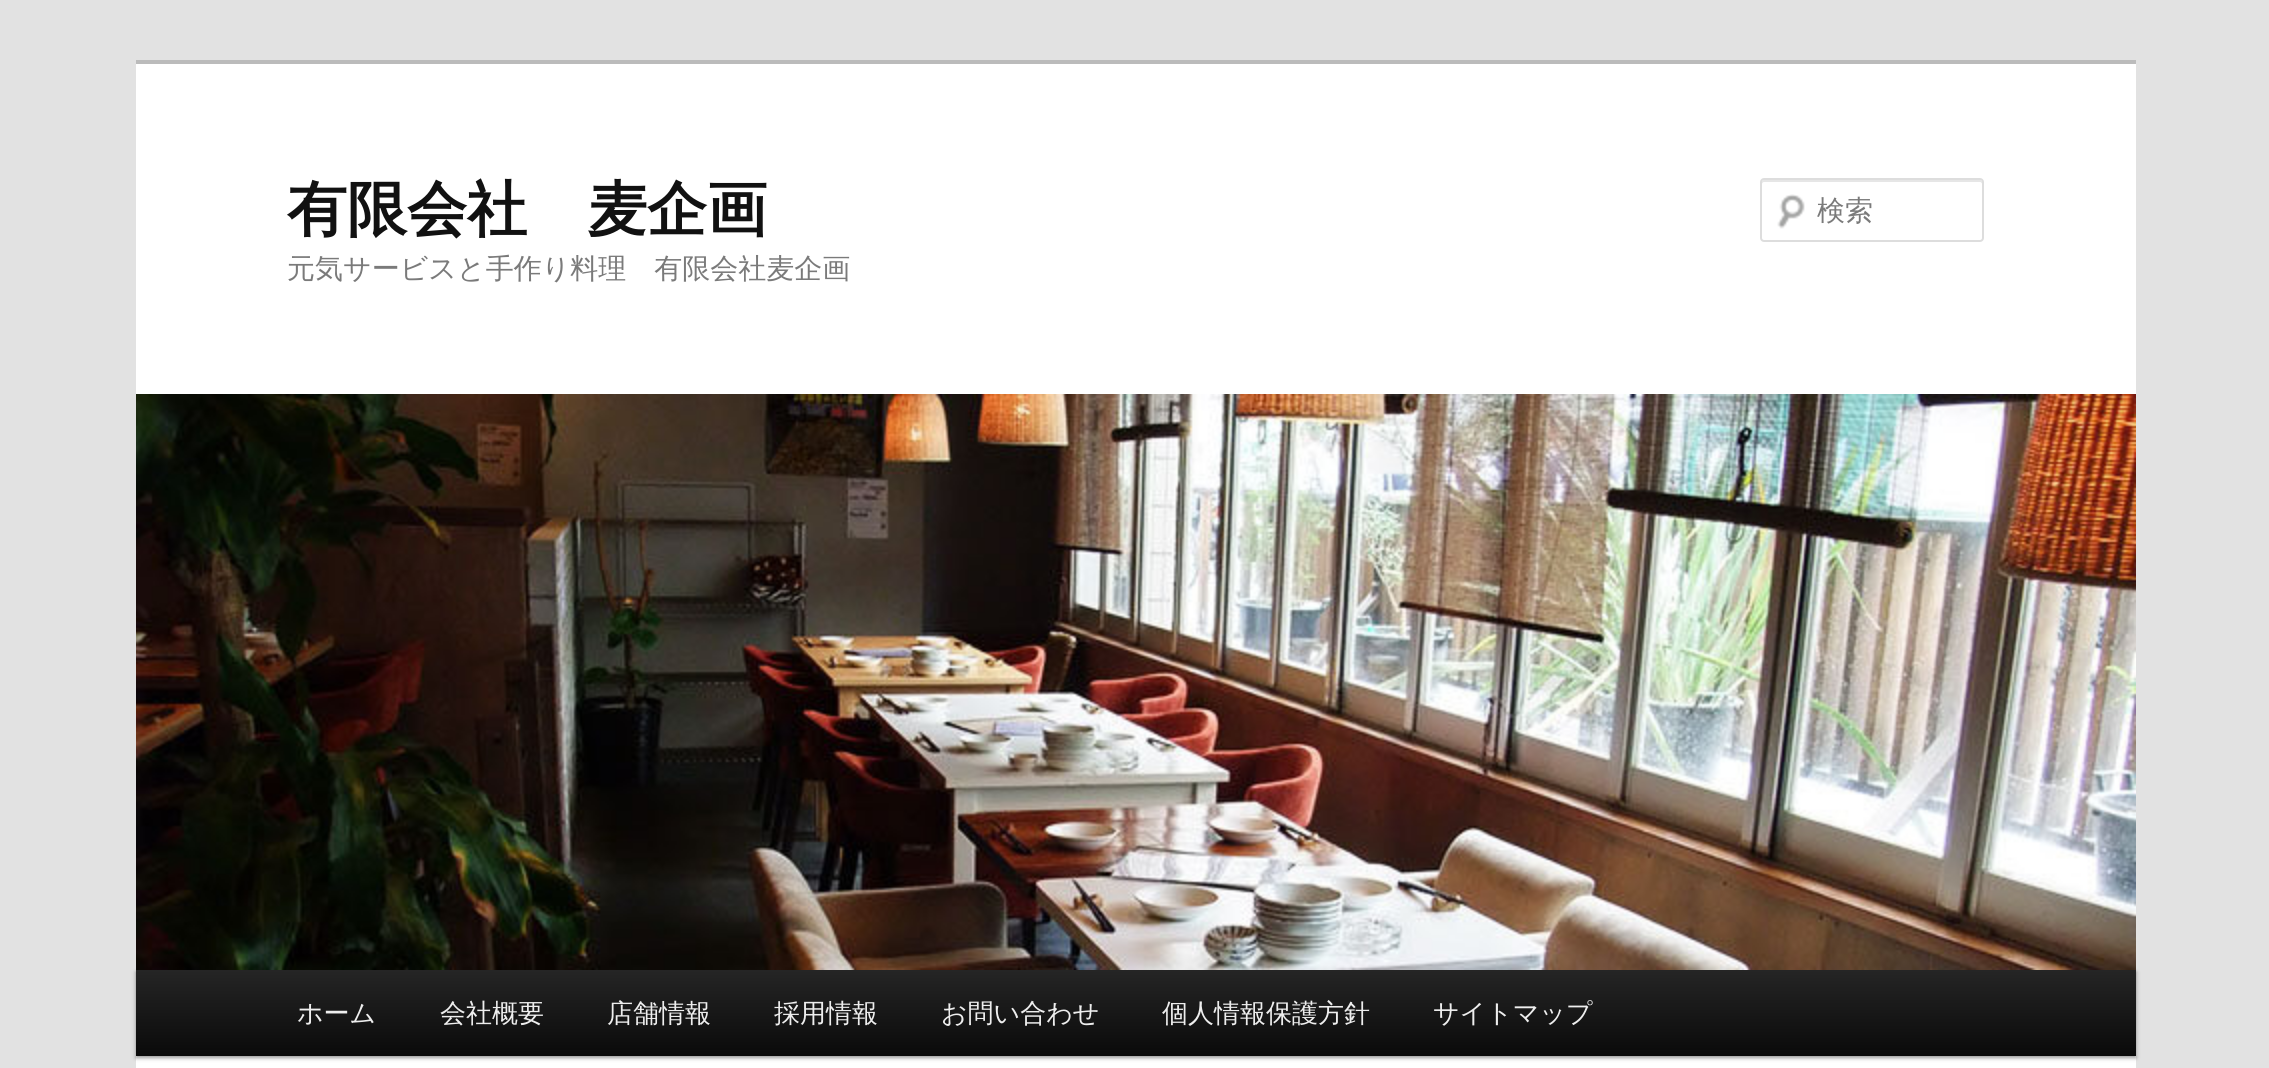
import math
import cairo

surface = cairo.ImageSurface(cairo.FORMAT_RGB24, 2269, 1068)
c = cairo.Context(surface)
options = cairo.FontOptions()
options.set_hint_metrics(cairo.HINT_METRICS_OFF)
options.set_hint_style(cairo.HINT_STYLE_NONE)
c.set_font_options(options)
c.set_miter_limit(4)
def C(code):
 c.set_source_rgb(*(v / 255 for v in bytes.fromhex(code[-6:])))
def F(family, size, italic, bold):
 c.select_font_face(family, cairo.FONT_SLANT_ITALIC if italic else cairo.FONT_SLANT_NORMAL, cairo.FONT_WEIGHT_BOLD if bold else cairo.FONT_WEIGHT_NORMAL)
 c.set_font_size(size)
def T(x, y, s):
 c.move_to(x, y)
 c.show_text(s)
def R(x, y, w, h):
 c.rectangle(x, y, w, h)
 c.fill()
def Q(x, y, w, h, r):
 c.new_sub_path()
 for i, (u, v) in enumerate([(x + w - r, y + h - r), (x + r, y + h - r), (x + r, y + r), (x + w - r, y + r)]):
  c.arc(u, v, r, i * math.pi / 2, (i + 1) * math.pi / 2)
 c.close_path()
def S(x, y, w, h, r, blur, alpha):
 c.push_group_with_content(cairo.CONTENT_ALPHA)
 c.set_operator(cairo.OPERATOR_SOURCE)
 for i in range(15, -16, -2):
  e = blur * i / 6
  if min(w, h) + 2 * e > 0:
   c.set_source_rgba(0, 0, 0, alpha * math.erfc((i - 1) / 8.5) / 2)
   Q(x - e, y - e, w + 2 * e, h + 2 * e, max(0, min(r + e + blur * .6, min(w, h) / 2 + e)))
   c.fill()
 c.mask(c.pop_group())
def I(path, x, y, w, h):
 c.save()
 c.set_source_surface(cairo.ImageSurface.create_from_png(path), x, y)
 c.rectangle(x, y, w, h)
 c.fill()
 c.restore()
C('e2e2e2')
c.paint()
C('ffffff')
R(136,64,2000,1004)
C('bbbbbb')
R(136,60,2000,4)
F('WenQuanYi Zen Hei',60,0,1)
C('111111')
T(287,230,'有限会社　麦企画')
F('WenQuanYi Zen Hei Medium',28,0,0)
C('7a7a7a')
T(287,278,'元気サービスと手作り料理　有限会社麦企画')
I('1.png',1777,194,28,35)
C('e6e6e6')
c.new_path()
c.move_to(1764,182)
c.line_to(1980,182)
c.curve_to(1981,182,1982,183,1982,184)
c.line_to(1982,182)
c.curve_to(1982,181,1981,180,1980,180)
c.line_to(1764,180)
c.curve_to(1763,180,1762,181,1762,182)
c.line_to(1762,184)
c.curve_to(1762,183,1763,182,1764,182)
c.close_path()
c.fill()
Q(1761,179,222,62,3)
C('dddddd')
c.stroke()
C('7a7a7a')
T(1817,220,'検索')
C('000000')
S(136,972,2000,86,0,2,.4)
I('2.png',136,394,2000,576)
gradient = cairo.LinearGradient(1136,970,1136,1056)
gradient.add_color_stop_rgba(0,0.145,0.145,0.145,1)
gradient.add_color_stop_rgba(1,0.039,0.039,0.039,1)
c.set_source(gradient)
R(136,970,2000,86)
F('WenQuanYi Zen Hei Medium',26,0,0)
C('eeeeee')
T(297,1022,'ホーム')
T(440,1022,'会社概要')
T(607,1022,'店舗情報')
T(774,1022,'採用情報')
T(941,1022,'お問い合わせ')
T(1162,1022,'個人情報保護方針')
T(1433,1022,'サイトマップ')
surface.write_to_png('o.png')
